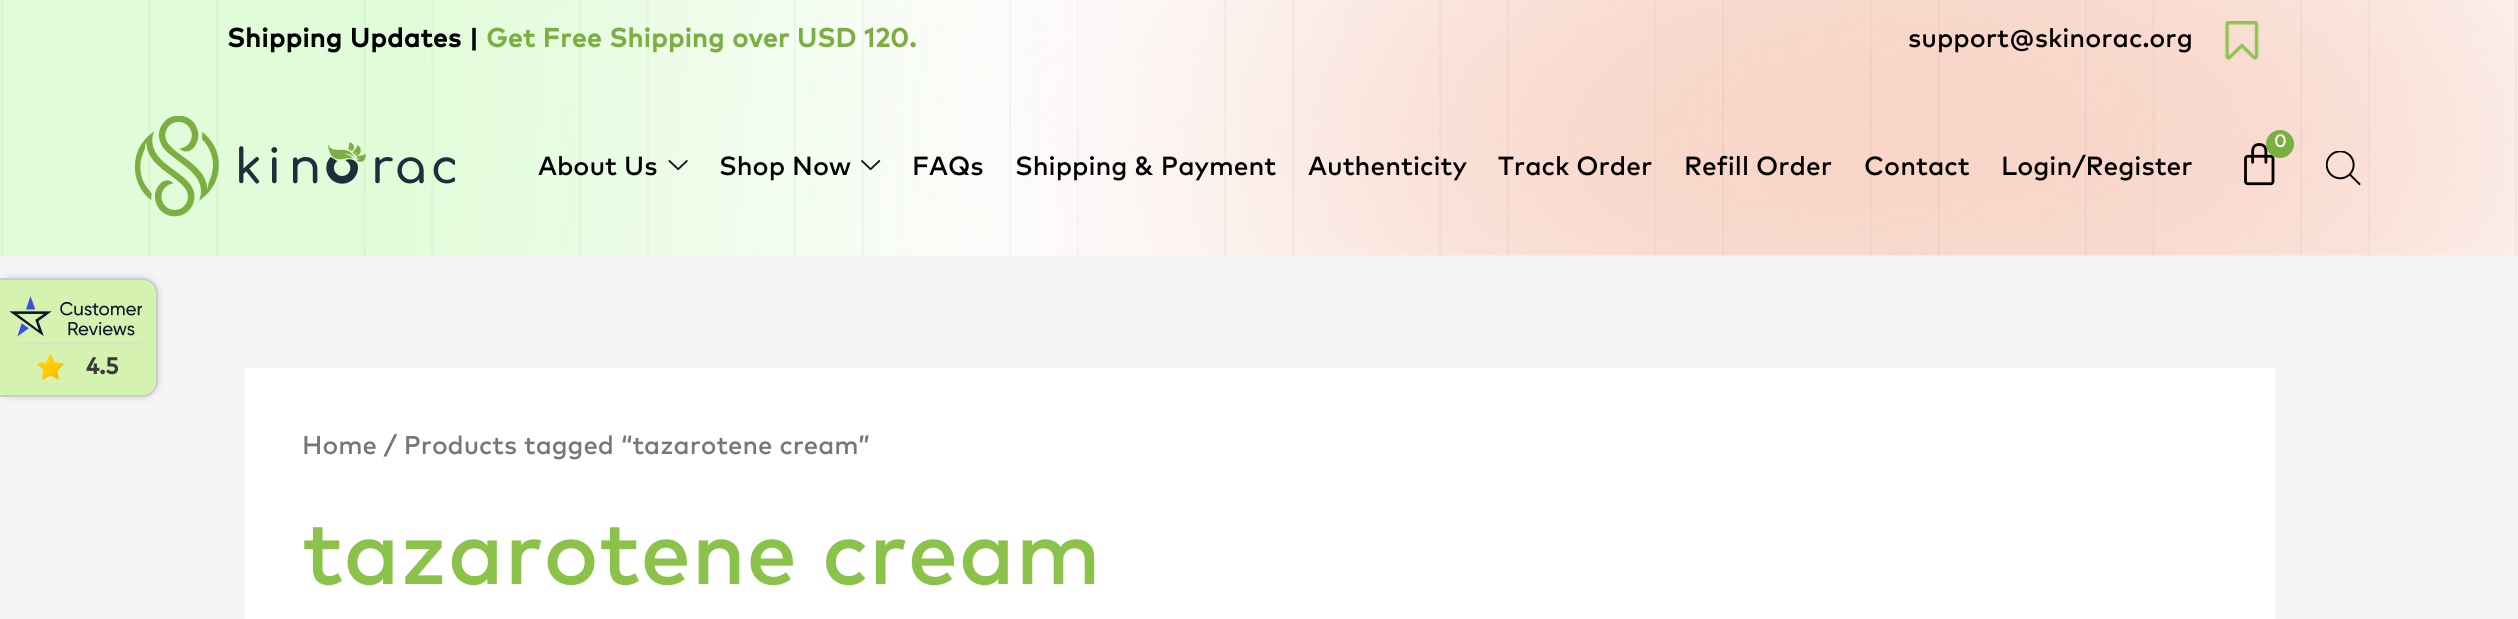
import math
import cairo

surface = cairo.ImageSurface(cairo.FORMAT_RGB24, 2518, 619)
c = cairo.Context(surface)
options = cairo.FontOptions()
options.set_hint_metrics(cairo.HINT_METRICS_OFF)
options.set_hint_style(cairo.HINT_STYLE_NONE)
c.set_font_options(options)
c.set_miter_limit(4)
def C(code):
 c.set_source_rgb(*(v / 255 for v in bytes.fromhex(code[-6:])))
def F(family, size, italic, bold):
 c.select_font_face(family, cairo.FONT_SLANT_ITALIC if italic else cairo.FONT_SLANT_NORMAL, cairo.FONT_WEIGHT_BOLD if bold else cairo.FONT_WEIGHT_NORMAL)
 c.set_font_size(size)
def T(x, y, s):
 c.move_to(x, y)
 c.show_text(s)
def L(x, y, s, letter, word):
 c.move_to(x, y)
 for ch in s:
  c.show_text(ch)
  c.rel_move_to(letter + word * (ch == ' '), 0)
def R(x, y, w, h):
 c.rectangle(x, y, w, h)
 c.fill()
def Q(x, y, w, h, r):
 c.new_sub_path()
 for i, (u, v) in enumerate([(x + w - r, y + h - r), (x + r, y + h - r), (x + r, y + r), (x + w - r, y + r)]):
  c.arc(u, v, r, i * math.pi / 2, (i + 1) * math.pi / 2)
 c.close_path()
def S(x, y, w, h, r, blur, alpha):
 c.push_group_with_content(cairo.CONTENT_ALPHA)
 c.set_operator(cairo.OPERATOR_SOURCE)
 for i in range(15, -16, -2):
  e = blur * i / 6
  if min(w, h) + 2 * e > 0:
   c.set_source_rgba(0, 0, 0, alpha * math.erfc((i - 1) / 8.5) / 2)
   Q(x - e, y - e, w + 2 * e, h + 2 * e, max(0, min(r + e + blur * .6, min(w, h) / 2 + e)))
   c.fill()
 c.mask(c.pop_group())
def I(path, x, y, w, h):
 c.save()
 c.set_source_surface(cairo.ImageSurface.create_from_png(path), x, y)
 c.rectangle(x, y, w, h)
 c.fill()
 c.restore()
C('f5f5f5')
c.paint()
C('cccccc')
S(-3,278,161,119,16,3.5,1)
C('d6f2b1')
c.new_path()
c.move_to(-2,279)
c.line_to(142,279)
c.curve_to(150.5,279,157,285.5,157,294)
c.line_to(157,381)
c.curve_to(157,389.5,150.5,396,142,396)
c.line_to(-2,396)
c.close_path()
c.fill_preserve()
C('cccccc')
c.stroke()
I('1.png',9,296,133,84)
F('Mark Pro',23,0,1)
C('3d3a3a')
T(86,374,'4.5')
I('2.png',0,0,2518,256)
I('3.png',1,0,2516,81)
F('Mark Pro',26.25,0,1)
C('000000')
L(227,47,'Shipping Updates |',.35,0)
C('7baf42')
L(486,47,'Get Free Shipping over USD 120.',.35,0)
F('Mark Pro Medium',26.25,0,0)
C('000000')
T(1908,47,'support@skinorac.org')
I('4.png',2224,21,35,39)
I('5.png',1,81,2516,175)
I('6.png',135,116,320,101)
I('7.png',2244,143,31,43)
C('7baf42')
c.arc(2280,144,14,0,2 * math.pi)
c.fill()
F('Mark Pro Medium',18,0,0)
C('ffffff')
T(2274,147,'0')
F('Mark Pro Medium',26.25,0,0)
C('000000')
T(538,175,'About Us')
I('8.png',668,160,20,11)
T(719,175,'Shop Now')
I('9.png',861,160,20,11)
T(912,175,'FAQs')
T(1015,175,'Shipping & Payment')
T(1308,175,'Authenticity')
T(1498,175,'Track Order')
T(1684,175,'Refill Order')
T(1864,175,'Contact')
T(2001,175,'Login/Register')
I('10.png',2326,151,35,35)
C('ffffff')
R(245,368,2030,251)
F('Mark Pro Medium',25.75,0,0)
C('777777')
T(302,454,'Home / Products tagged “tazarotene cream”')
F('Mark Pro Medium',91,0,0)
C('8bc34a')
T(302,584,'tazarotene cream')
surface.write_to_png('o.png')
